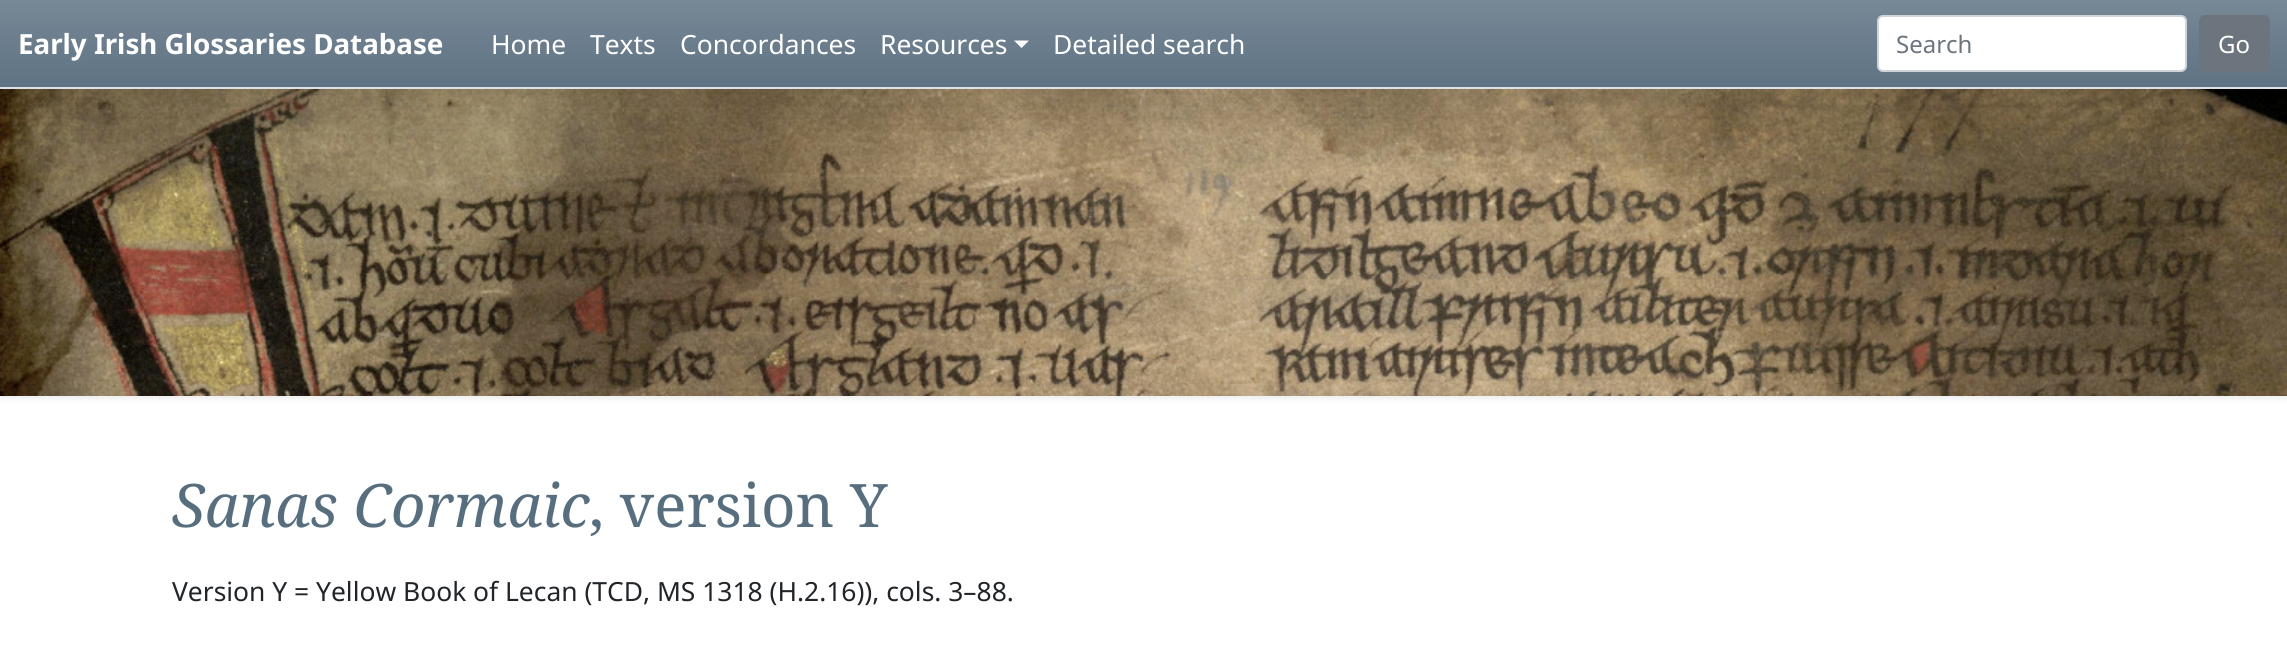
import math
import cairo

surface = cairo.ImageSurface(cairo.FORMAT_RGB24, 2287, 660)
c = cairo.Context(surface)
options = cairo.FontOptions()
options.set_hint_metrics(cairo.HINT_METRICS_OFF)
options.set_hint_style(cairo.HINT_STYLE_NONE)
c.set_font_options(options)
c.set_miter_limit(4)
def C(code):
 c.set_source_rgb(*(v / 255 for v in bytes.fromhex(code[-6:])))
def F(family, size, italic, bold):
 c.select_font_face(family, cairo.FONT_SLANT_ITALIC if italic else cairo.FONT_SLANT_NORMAL, cairo.FONT_WEIGHT_BOLD if bold else cairo.FONT_WEIGHT_NORMAL)
 c.set_font_size(size)
def T(x, y, s):
 c.move_to(x, y)
 c.show_text(s)
def R(x, y, w, h):
 c.rectangle(x, y, w, h)
 c.fill()
def Q(x, y, w, h, r):
 c.new_sub_path()
 for i, (u, v) in enumerate([(x + w - r, y + h - r), (x + r, y + h - r), (x + r, y + r), (x + w - r, y + r)]):
  c.arc(u, v, r, i * math.pi / 2, (i + 1) * math.pi / 2)
 c.close_path()
def S(x, y, w, h, r, blur, alpha):
 c.push_group_with_content(cairo.CONTENT_ALPHA)
 c.set_operator(cairo.OPERATOR_SOURCE)
 for i in range(15, -16, -2):
  e = blur * i / 6
  if min(w, h) + 2 * e > 0:
   c.set_source_rgba(0, 0, 0, alpha * math.erfc((i - 1) / 8.5) / 2)
   Q(x - e, y - e, w + 2 * e, h + 2 * e, max(0, min(r + e + blur * .6, min(w, h) / 2 + e)))
   c.fill()
 c.mask(c.pop_group())
def I(path, x, y, w, h):
 c.save()
 c.set_source_surface(cairo.ImageSurface.create_from_png(path), x, y)
 c.rectangle(x, y, w, h)
 c.fill()
 c.restore()
C('ffffff')
c.paint()
C('000000')
S(0,92,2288,307,0,3,.07)
I('1.png',0,89,2287,307)
S(0,24,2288,89,0,36,.18)
gradient = cairo.LinearGradient(1144,0,1144,87)
gradient.add_color_stop_rgba(0,0.467,0.533,0.588,1)
gradient.add_color_stop_rgba(1,0.373,0.451,0.518,1)
c.set_source(gradient)
R(0,0,2287,87)
C('dee2e6')
R(0,87,2287,2)
F('Noto Sans',27.75,0,1)
C('ffffff')
T(18,54,'Early Irish Glossaries Database')
F('Noto Sans',26.4,0,0)
T(491,54,'Home')
T(590,54,'Texts')
T(680,54,'Concordances')
T(880,54,'Resources')
c.new_path()
c.move_to(1014,40.5)
c.line_to(1029,40.5)
c.line_to(1021.5,48)
c.close_path()
c.fill()
T(1053,54,'Detailed search')
Q(1878,16,308,55,5)
c.fill_preserve()
C('ced4da')
c.stroke()
F('Noto Sans',24,0,0)
C('6c757d')
T(1896,53,'Search')
Q(2200,16,69,55,5)
c.fill_preserve()
c.stroke()
C('ffffff')
T(2218,53,'Go')
F('Noto Serif',60,1,0)
C('576e7f')
T(172,527,'Sanas Cormaic')
F('Noto Serif',60,0,0)
T(589,527,', version Y')
F('Noto Sans',26.4,0,0)
C('212529')
T(172,601,'Version Y = Yellow Book of Lecan (TCD, MS 1318 (H.2.16)), cols. 3–88.')
surface.write_to_png('o.png')
